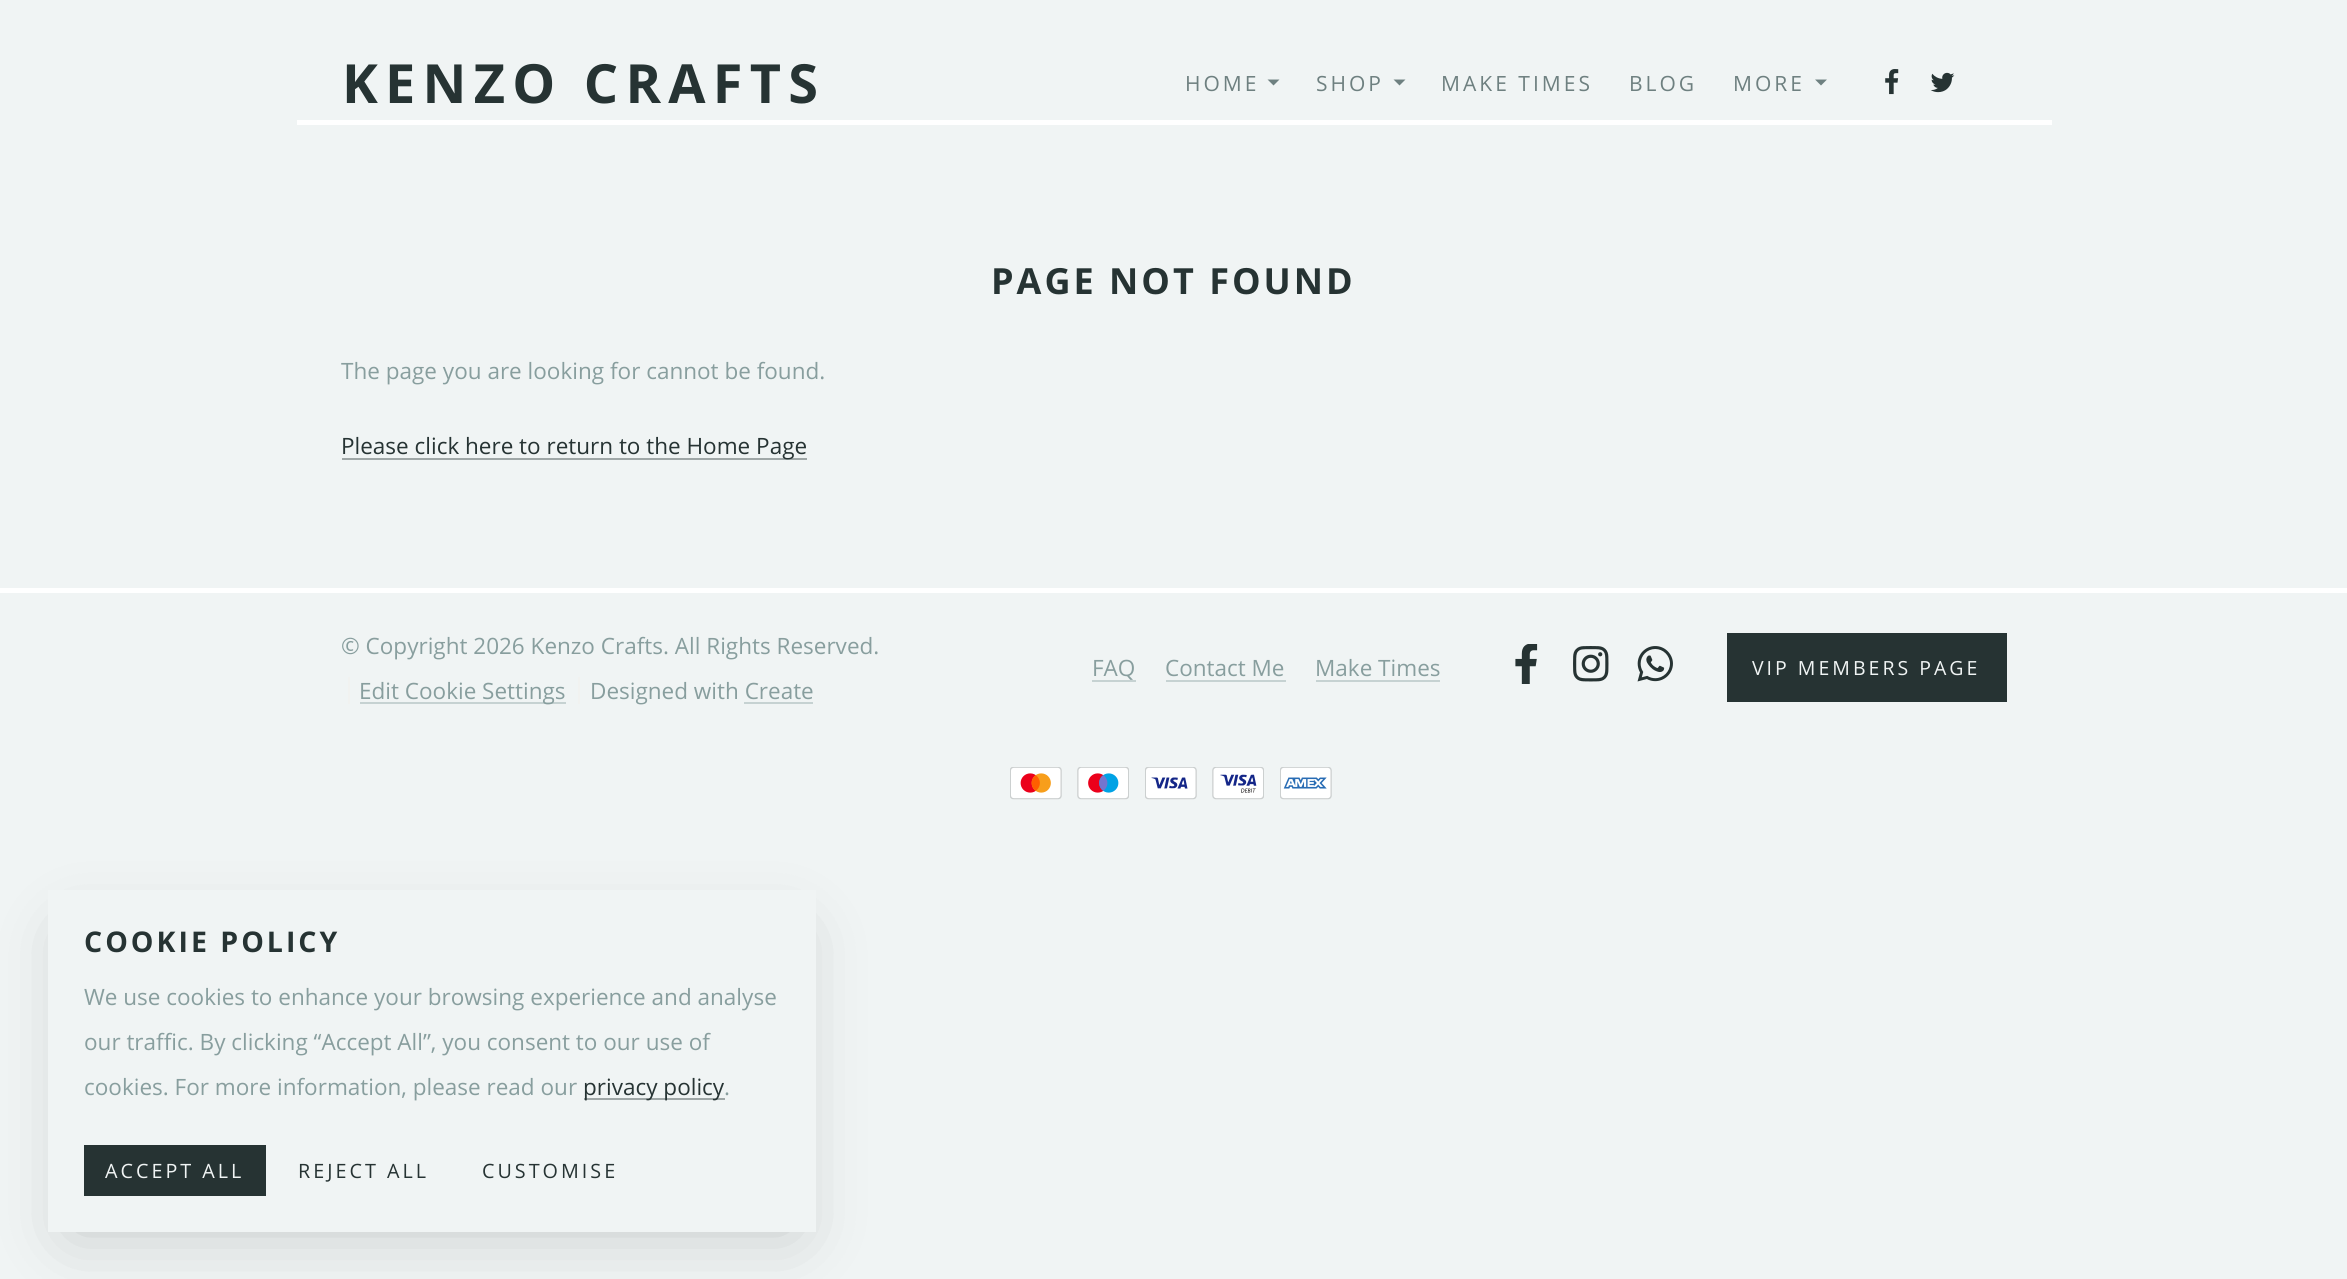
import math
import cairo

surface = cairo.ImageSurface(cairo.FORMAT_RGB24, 2347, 1279)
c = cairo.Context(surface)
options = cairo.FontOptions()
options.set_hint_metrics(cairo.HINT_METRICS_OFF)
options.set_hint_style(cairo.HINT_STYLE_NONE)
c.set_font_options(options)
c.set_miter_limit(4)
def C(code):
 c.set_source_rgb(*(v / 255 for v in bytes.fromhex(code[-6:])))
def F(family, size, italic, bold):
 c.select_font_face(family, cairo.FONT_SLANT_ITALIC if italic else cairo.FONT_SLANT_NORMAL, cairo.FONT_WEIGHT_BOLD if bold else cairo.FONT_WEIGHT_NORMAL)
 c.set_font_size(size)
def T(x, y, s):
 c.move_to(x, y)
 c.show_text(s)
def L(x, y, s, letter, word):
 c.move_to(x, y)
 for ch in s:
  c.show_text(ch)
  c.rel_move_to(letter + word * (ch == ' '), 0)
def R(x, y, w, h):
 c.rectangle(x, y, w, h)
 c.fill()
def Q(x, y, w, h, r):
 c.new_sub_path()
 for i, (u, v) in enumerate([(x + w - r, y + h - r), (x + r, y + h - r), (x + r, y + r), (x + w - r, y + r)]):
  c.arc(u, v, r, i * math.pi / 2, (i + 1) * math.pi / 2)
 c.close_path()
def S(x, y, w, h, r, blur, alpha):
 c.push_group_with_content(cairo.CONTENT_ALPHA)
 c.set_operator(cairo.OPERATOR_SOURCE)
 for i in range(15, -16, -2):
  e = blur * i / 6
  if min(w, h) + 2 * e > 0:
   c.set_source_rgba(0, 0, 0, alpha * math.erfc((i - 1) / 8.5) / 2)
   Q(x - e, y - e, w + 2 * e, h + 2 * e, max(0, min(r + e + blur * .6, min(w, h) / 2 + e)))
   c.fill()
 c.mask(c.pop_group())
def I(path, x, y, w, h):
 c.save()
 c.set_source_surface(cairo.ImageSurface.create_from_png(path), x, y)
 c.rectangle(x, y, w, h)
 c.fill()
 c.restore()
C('f0f4f4')
c.paint()
C('ffffff')
R(297,120,1755,5)
F('Open Sans',54,0,1)
C('263333')
L(342,103,'KENZO CRAFTS',7.25,0)
F('Open Sans',21,0,0)
C('6e8080')
L(1185,91,'HOME',3,0)
c.new_path()
c.move_to(1267.5,79.5)
c.line_to(1279.5,79.5)
c.line_to(1273.5,85.5)
c.close_path()
c.fill()
L(1316,91,'SHOP',3,0)
c.new_path()
c.move_to(1393.5,79.5)
c.line_to(1405.5,79.5)
c.line_to(1399.5,85.5)
c.close_path()
c.fill()
L(1441,91,'MAKE TIMES',3,0)
L(1629,91,'BLOG',3,0)
L(1733,91,'MORE',3,0)
c.new_path()
c.move_to(1815,79.5)
c.line_to(1827,79.5)
c.line_to(1821,85.5)
c.close_path()
c.fill()
I('1.png',1885,69,14,26)
I('2.png',1930,72,25,21)
F('Open Sans',36,0,1)
C('263333')
L(991,294,'PAGE NOT FOUND',3,0)
F('Open Sans',22.5,0,0)
C('889e9e')
T(341,379,'The page you are looking for cannot be found.')
C('9fa7a7')
R(342,458,465,2)
C('263333')
T(341,454,'Please click here to return to the Home Page')
C('ffffff')
R(0,588,2347,5)
C('889e9e')
T(341,654,'© Copyright 2026 Kenzo Crafts. All Rights Reserved.')
C('f1f2f0')
R(348,677,2,27)
C('c6d2d2')
R(360,702,206,2)
C('889e9e')
T(359,699,'Edit Cookie Settings')
C('f1f2f0')
R(578,677,2,27)
C('889e9e')
T(590,699,'Designed with Create')
C('c6d2d2')
R(744,702,69,2)
C('889e9e')
T(1092,676,'FAQ')
C('c6d2d2')
R(1092,680,44,2)
C('889e9e')
T(1165,676,'Contact Me')
C('c6d2d2')
R(1166,680,120,2)
C('889e9e')
T(1315,676,'Make Times')
C('c6d2d2')
R(1316,680,124,2)
I('3.png',1515,644,23,40)
I('4.png',1573,646,36,36)
I('5.png',1637,646,36,36)
C('263333')
R(1727,633,280,69)
F('Open Sans',19.5,0,0)
C('f0f4f4')
L(1752,675,'VIP MEMBERS PAGE',3,0)
I('6.png',1010,767,52,33)
I('7.png',1077,767,52,33)
I('8.png',1145,767,52,33)
I('9.png',1212,767,52,33)
I('10.png',1280,767,52,33)
C('0a0a0a')
S(71,935,723,297,0,34,.2)
C('f0f4f4')
R(48,890,768,342)
F('Open Sans',28.5,0,1)
C('263333')
L(84,952,'COOKIE POLICY',3,0)
F('Open Sans',22.5,0,0)
C('889e9e')
T(84,1005,'We use cookies to enhance your browsing experience and analyse')
T(84,1050,'our traffic. By clicking “Accept All”, you consent to our use of')
T(84,1095,'cookies. For more information, please read our')
C('9fa7a7')
R(584,1098,141,2)
C('263333')
T(583,1095,'privacy policy')
C('889e9e')
T(724,1095,'.')
C('263333')
R(84,1145,182,51)
F('Open Sans',19.75,0,0)
C('f0f4f4')
L(105,1178,'ACCEPT ALL',3,0)
C('263333')
L(298,1178,'REJECT ALL',3,0)
L(482,1178,'CUSTOMISE',3,0)
surface.write_to_png('o.png')
